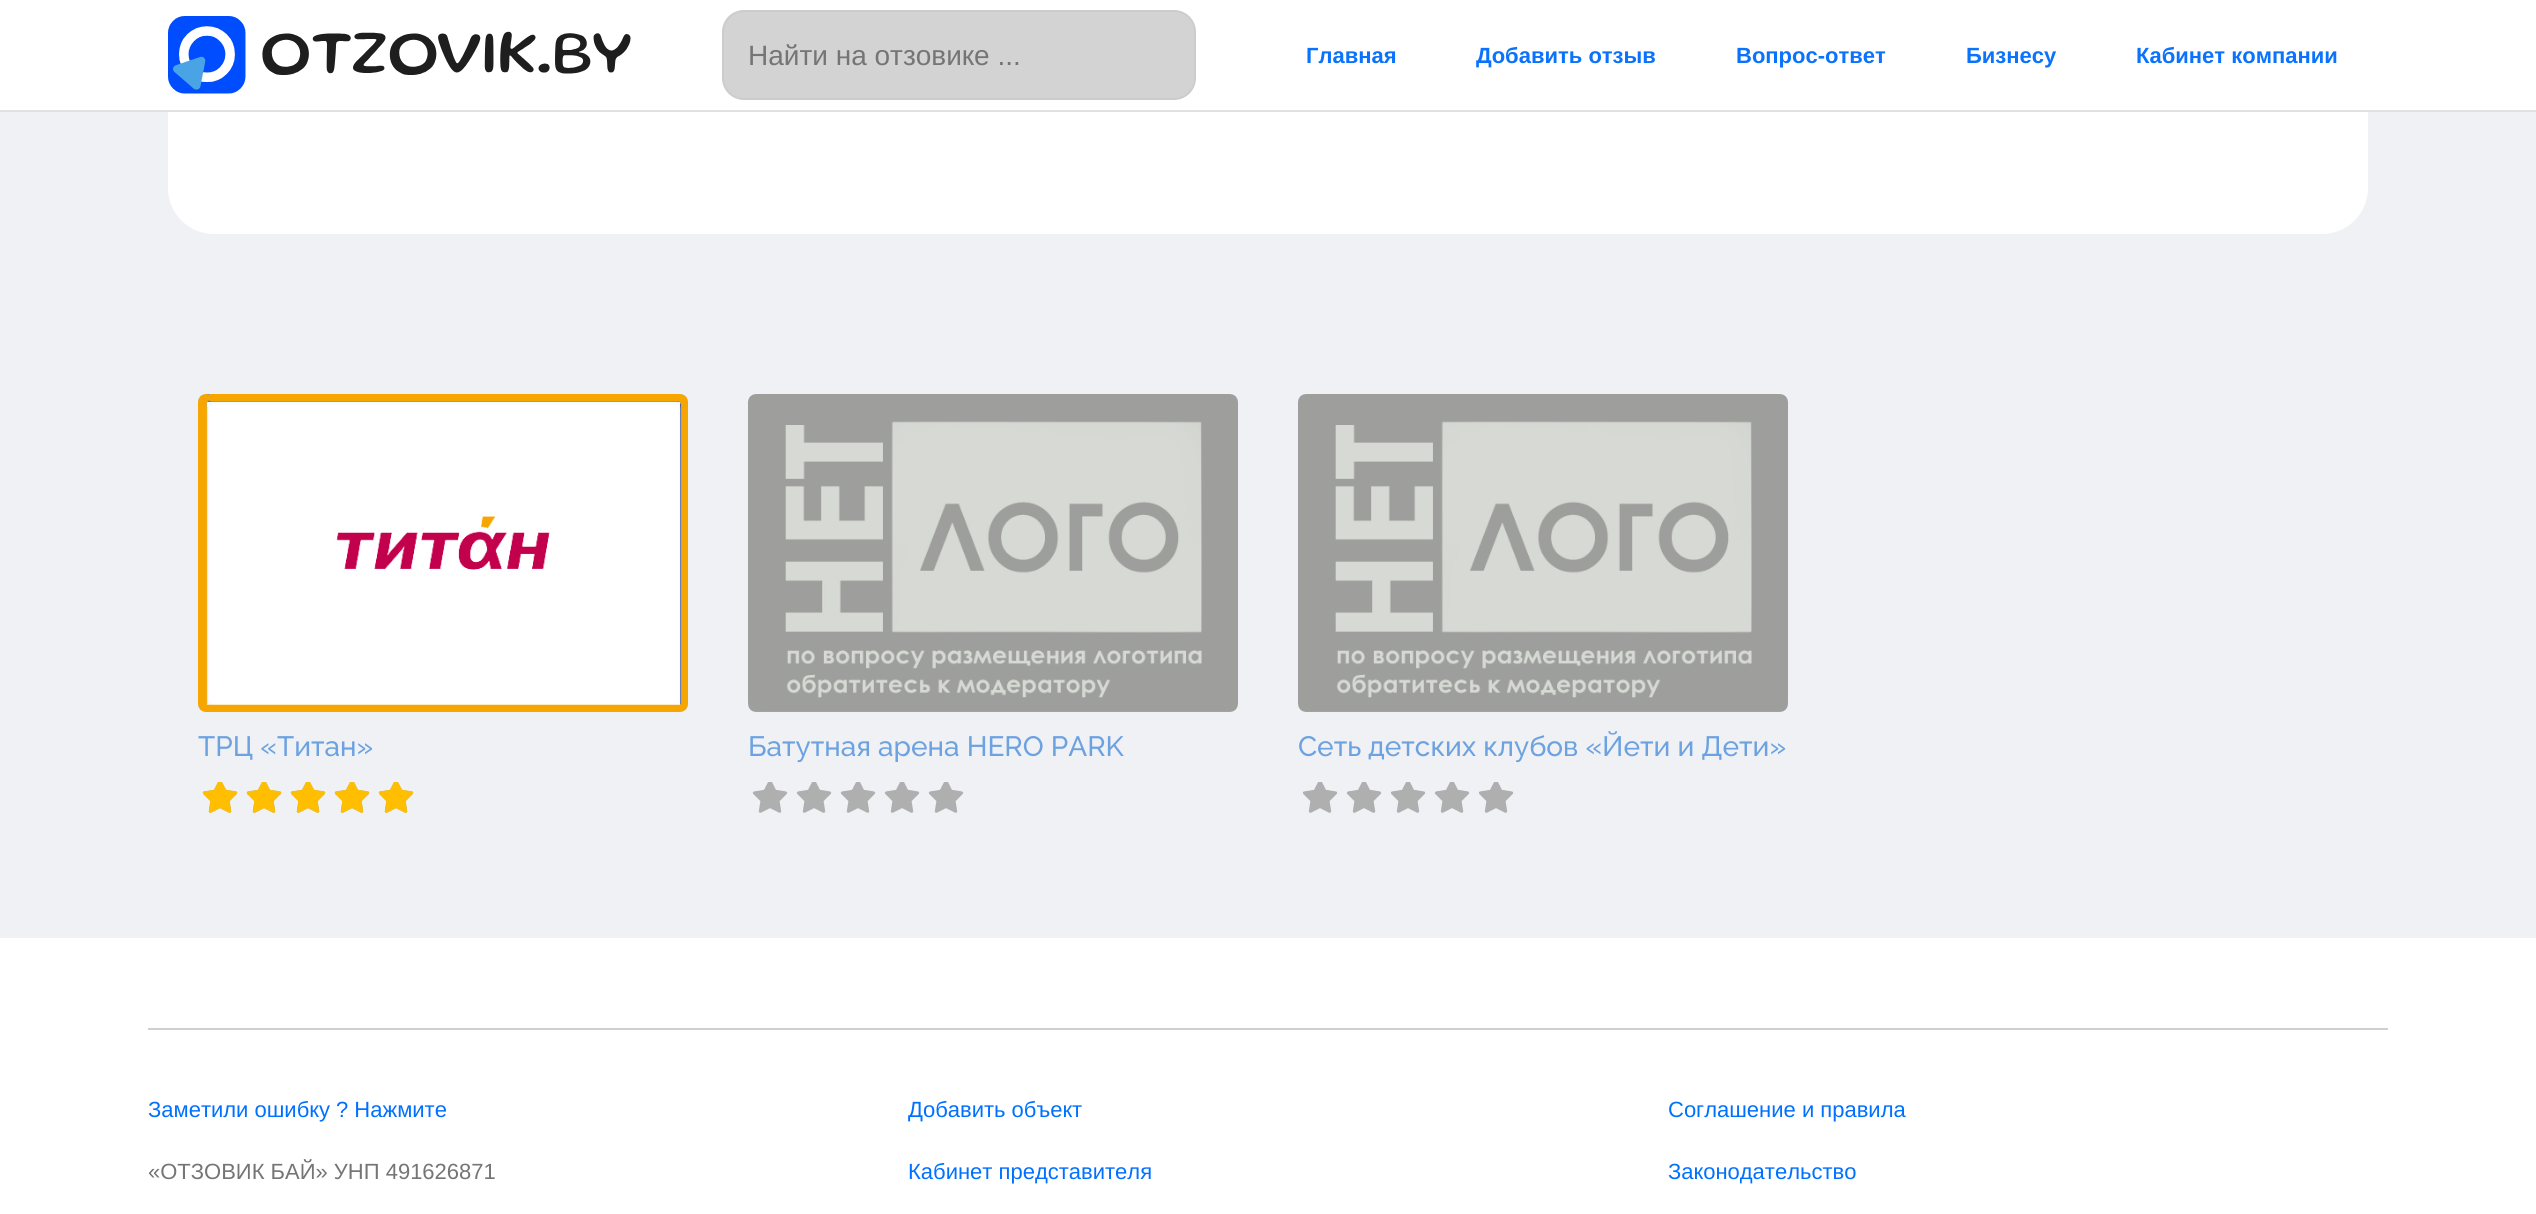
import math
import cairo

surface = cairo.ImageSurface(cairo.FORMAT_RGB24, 2536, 1214)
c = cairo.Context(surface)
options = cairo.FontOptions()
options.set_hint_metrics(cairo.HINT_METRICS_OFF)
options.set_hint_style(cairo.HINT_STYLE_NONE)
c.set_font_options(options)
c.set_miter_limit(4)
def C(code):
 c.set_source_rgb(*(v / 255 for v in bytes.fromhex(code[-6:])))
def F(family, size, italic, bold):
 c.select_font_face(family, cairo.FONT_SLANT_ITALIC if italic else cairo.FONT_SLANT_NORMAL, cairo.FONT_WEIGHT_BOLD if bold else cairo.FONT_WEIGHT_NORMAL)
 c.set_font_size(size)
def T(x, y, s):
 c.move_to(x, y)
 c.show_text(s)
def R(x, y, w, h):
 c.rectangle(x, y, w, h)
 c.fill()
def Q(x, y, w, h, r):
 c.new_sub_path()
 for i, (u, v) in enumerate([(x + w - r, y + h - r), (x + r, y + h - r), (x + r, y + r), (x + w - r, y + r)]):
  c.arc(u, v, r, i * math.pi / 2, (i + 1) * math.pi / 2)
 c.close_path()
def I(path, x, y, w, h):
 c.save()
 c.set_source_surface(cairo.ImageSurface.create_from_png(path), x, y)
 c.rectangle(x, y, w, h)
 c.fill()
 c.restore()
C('eff1f5')
c.paint()
C('ffffff')
Q(168,-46,2200,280,46)
c.fill()
R(0,0,2536,110)
C('e1e1e1')
R(0,110,2536,2)
I('1.png',168,16,463,78)
C('d3d3d3')
Q(723,11,472,88,21)
c.fill_preserve()
C('cccccc')
c.stroke()
F('Liberation Sans',28,0,0)
C('757575')
T(748,65,'Найти на отзовике ...')
F('Liberation Sans',22,0,1)
C('0a72fd')
T(1306,63,'Главная')
T(1476,63,'Добавить отзыв')
T(1736,63,'Вопрос-ответ')
T(1966,63,'Бизнесу')
T(2136,63,'Кабинет компании')
C('c4c6c0')
Q(198,394,490,318,8)
c.fill()
I('2.png',198,394,490,318)
F('Raleway Medium',28,0,0)
C('6da2e1')
T(198,756,'ТРЦ «Титан»')
I('3.png',202,782,36,31)
I('3.png',246,782,36,31)
I('3.png',290,782,36,31)
I('3.png',334,782,36,31)
I('3.png',378,782,36,31)
I('4.png',202,782,36,31)
I('4.png',246,782,36,31)
I('4.png',290,782,36,31)
I('4.png',334,782,36,31)
I('4.png',378,782,36,31)
C('c4c6c0')
Q(748,394,490,318,8)
c.fill()
I('5.png',748,394,490,318)
C('6da2e1')
T(748,756,'Батутная арена HERO PARK')
I('3.png',752,782,36,31)
I('3.png',796,782,36,31)
I('3.png',840,782,36,31)
I('3.png',884,782,36,31)
I('3.png',928,782,36,31)
C('c4c6c0')
Q(1298,394,490,318,8)
c.fill()
I('5.png',1298,394,490,318)
C('6da2e1')
T(1298,756,'Сеть детских клубов «Йети и Дети»')
I('3.png',1302,782,36,31)
I('3.png',1346,782,36,31)
I('3.png',1390,782,36,31)
I('3.png',1434,782,36,31)
I('3.png',1478,782,36,31)
C('ffffff')
R(0,938,2536,276)
C('cfcfcf')
R(148,1028,2240,2)
F('Liberation Sans',22,0,0)
C('0070ff')
T(148,1117,'Заметили ошибку ? Нажмите')
C('757575')
T(148,1179,'«ОТЗОВИК БАЙ» УНП 491626871')
C('0070ff')
T(908,1117,'Добавить объект')
T(908,1179,'Кабинет представителя')
T(1668,1117,'Соглашение и правила')
T(1668,1179,'Законодательство')
surface.write_to_png('o.png')
